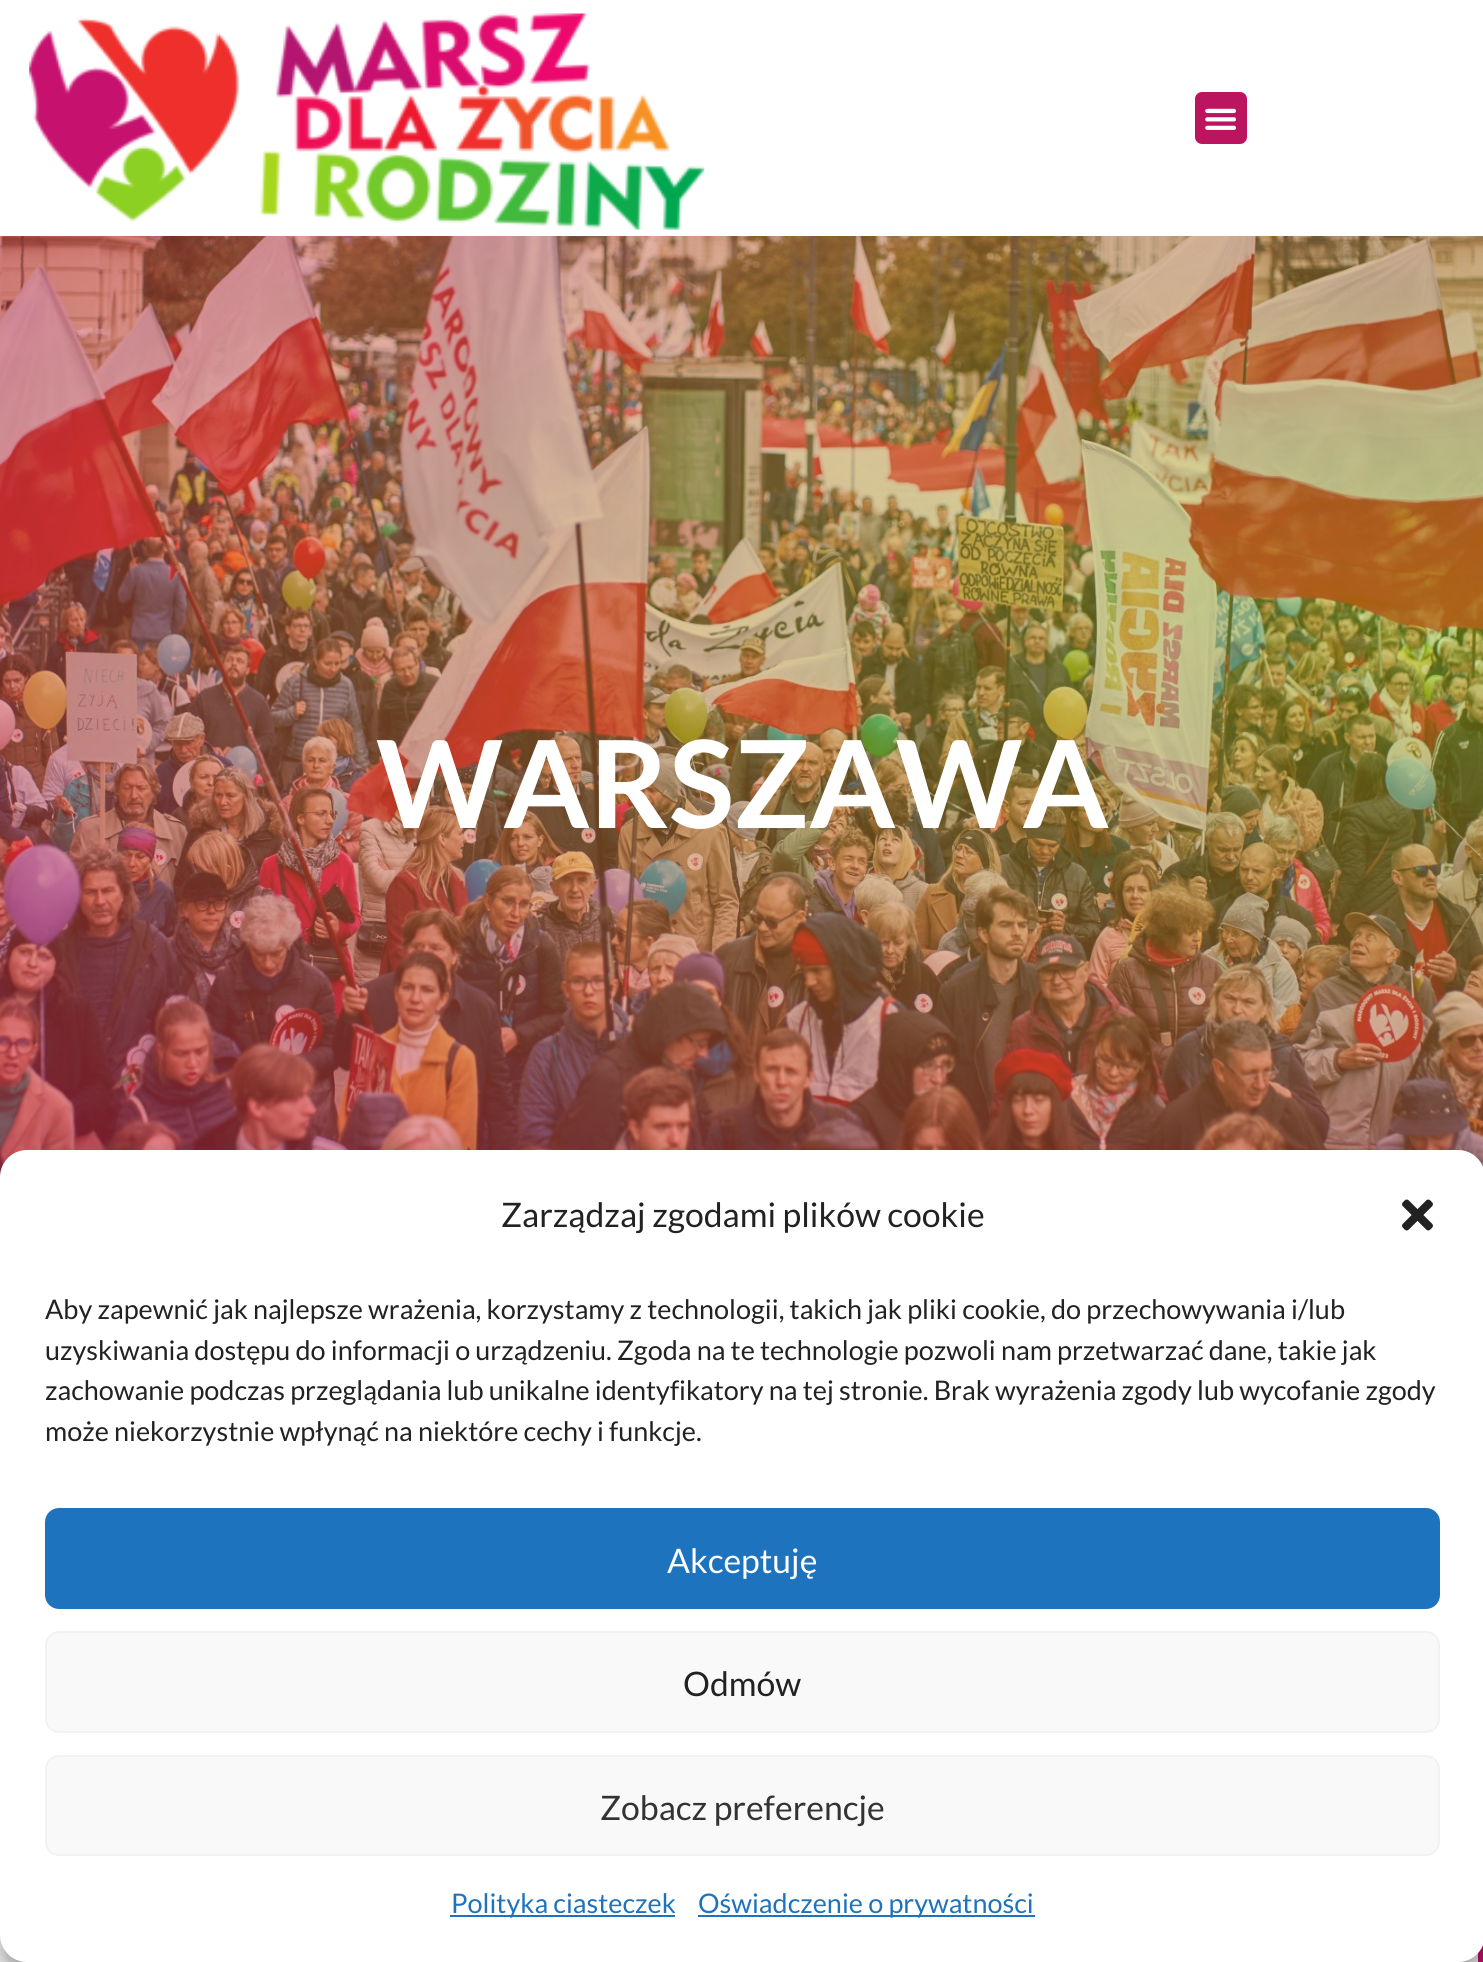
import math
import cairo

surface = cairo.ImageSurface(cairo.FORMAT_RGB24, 1483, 1962)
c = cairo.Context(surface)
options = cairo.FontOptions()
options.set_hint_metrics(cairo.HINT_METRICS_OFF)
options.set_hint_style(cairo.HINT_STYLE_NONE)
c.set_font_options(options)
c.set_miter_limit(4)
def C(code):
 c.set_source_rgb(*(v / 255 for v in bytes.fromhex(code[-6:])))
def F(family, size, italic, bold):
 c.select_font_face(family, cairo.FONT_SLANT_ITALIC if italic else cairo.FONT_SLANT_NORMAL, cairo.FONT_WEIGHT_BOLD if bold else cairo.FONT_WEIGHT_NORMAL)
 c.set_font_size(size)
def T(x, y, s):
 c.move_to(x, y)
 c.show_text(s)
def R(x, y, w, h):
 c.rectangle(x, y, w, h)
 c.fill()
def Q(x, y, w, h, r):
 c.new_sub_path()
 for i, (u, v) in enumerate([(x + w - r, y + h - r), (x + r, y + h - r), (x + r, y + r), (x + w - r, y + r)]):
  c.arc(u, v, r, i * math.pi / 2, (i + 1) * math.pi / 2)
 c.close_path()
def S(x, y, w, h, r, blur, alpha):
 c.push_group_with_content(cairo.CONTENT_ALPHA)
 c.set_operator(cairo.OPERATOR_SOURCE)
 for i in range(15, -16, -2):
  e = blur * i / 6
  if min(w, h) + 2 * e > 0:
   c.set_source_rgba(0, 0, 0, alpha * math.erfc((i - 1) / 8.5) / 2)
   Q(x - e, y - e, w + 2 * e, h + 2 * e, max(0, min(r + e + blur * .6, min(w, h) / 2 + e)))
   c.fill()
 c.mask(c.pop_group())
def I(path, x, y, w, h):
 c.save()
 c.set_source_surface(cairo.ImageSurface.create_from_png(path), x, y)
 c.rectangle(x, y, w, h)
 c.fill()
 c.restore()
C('ffffff')
c.paint()
I('1.png',29,13,676,217)
C('bc1560')
Q(1195,92,52,52,7)
c.fill()
I('2.png',1205,108,32,22)
I('3.png',0,236,1483,941)
gradient = cairo.RadialGradient(0,0,0,0,0,1)
gradient.set_matrix(cairo.Matrix(1 / 2100, 0, 0, 1 / 869, -1 * 1485 / 2100, -1 * 614 / 869))
gradient.add_color_stop_rgba(0,0.635,0.773,0.094,.51)
gradient.add_color_stop_rgba(1,0.949,0.161,0.357,.51)
c.set_source(gradient)
R(0,236,1483,941)
F('Lato',121.5,0,1)
C('ffffff')
T(376,828,'WARSZAWA')
C('c7116f')
R(1478,1945,5,17)
C('000000')
S(0,1163,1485,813,27,7,.23)
S(0,1172,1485,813,27,22.5,.19)
C('ffffff')
Q(0,1150,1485,812,27)
c.fill()
F('Lato',33.75,0,0)
C('222222')
T(501,1227,'Zarządzaj zgodami plików cookie')
I('4.png',1402,1199,31,32)
F('Lato',27,0,0)
T(45,1319,'Aby zapewnić jak najlepsze wrażenia, korzystamy z technologii, takich jak pliki cookie, do przechowywania i/lub')
T(45,1360,'uzyskiwania dostępu do informacji o urządzeniu. Zgoda na te technologie pozwoli nam przetwarzać dane, takie jak')
T(45,1400,'zachowanie podczas przeglądania lub unikalne identyfikatory na tej stronie. Brak wyrażenia zgody lub wycofanie zgody')
T(45,1441,'może niekorzystnie wpłynąć na niektóre cechy i funkcje.')
C('1e73be')
Q(46,1509,1393,99,13)
c.fill_preserve()
c.stroke()
F('Lato',33.75,0,0)
C('ffffff')
T(667,1573,'Akceptuję')
C('f9f9f9')
Q(46,1632,1393,100,13)
c.fill_preserve()
C('f2f2f2')
c.stroke()
C('222222')
T(683,1696,'Odmów')
C('f9f9f9')
Q(46,1756,1393,99,13)
c.fill_preserve()
C('f2f2f2')
c.stroke()
C('333333')
T(600,1820,'Zobacz preferencje')
C('1e73be')
R(450,1915,225,2)
F('Lato',27,0,0)
T(451,1913,'Polityka ciasteczek')
R(698,1915,337,2)
T(698,1913,'Oświadczenie o prywatności')
surface.write_to_png('o.png')
